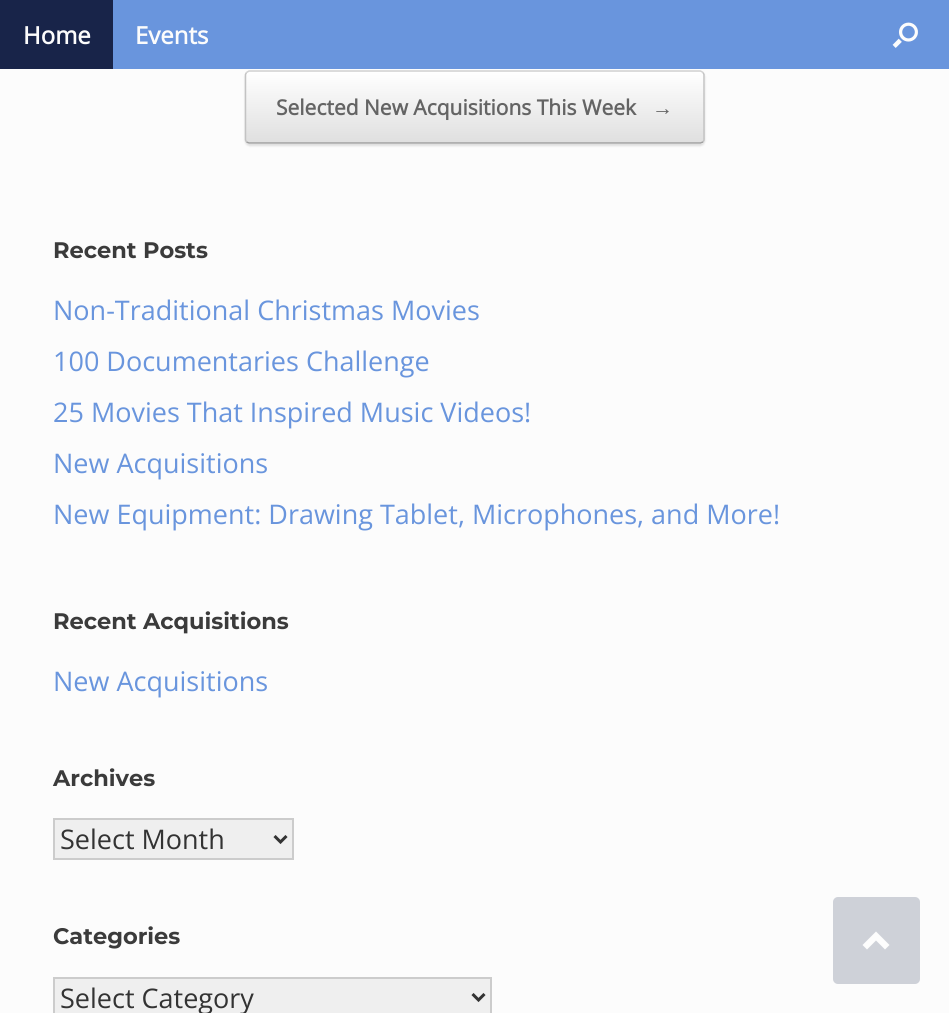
import math
import cairo

surface = cairo.ImageSurface(cairo.FORMAT_RGB24, 949, 1013)
c = cairo.Context(surface)
options = cairo.FontOptions()
options.set_hint_metrics(cairo.HINT_METRICS_OFF)
options.set_hint_style(cairo.HINT_STYLE_NONE)
c.set_font_options(options)
c.set_miter_limit(4)
def C(code):
 c.set_source_rgb(*(v / 255 for v in bytes.fromhex(code[-6:])))
def F(family, size, italic, bold):
 c.select_font_face(family, cairo.FONT_SLANT_ITALIC if italic else cairo.FONT_SLANT_NORMAL, cairo.FONT_WEIGHT_BOLD if bold else cairo.FONT_WEIGHT_NORMAL)
 c.set_font_size(size)
def T(x, y, s):
 c.move_to(x, y)
 c.show_text(s)
def R(x, y, w, h):
 c.rectangle(x, y, w, h)
 c.fill()
def Q(x, y, w, h, r):
 c.new_sub_path()
 for i, (u, v) in enumerate([(x + w - r, y + h - r), (x + r, y + h - r), (x + r, y + r), (x + w - r, y + r)]):
  c.arc(u, v, r, i * math.pi / 2, (i + 1) * math.pi / 2)
 c.close_path()
def S(x, y, w, h, r, blur, alpha):
 c.push_group_with_content(cairo.CONTENT_ALPHA)
 c.set_operator(cairo.OPERATOR_SOURCE)
 for i in range(15, -16, -2):
  e = blur * i / 6
  if min(w, h) + 2 * e > 0:
   c.set_source_rgba(0, 0, 0, alpha * math.erfc((i - 1) / 8.5) / 2)
   Q(x - e, y - e, w + 2 * e, h + 2 * e, max(0, min(r + e + blur * .6, min(w, h) / 2 + e)))
   c.fill()
 c.mask(c.pop_group())
def I(path, x, y, w, h):
 c.save()
 c.set_source_surface(cairo.ImageSurface.create_from_png(path), x, y)
 c.rectangle(x, y, w, h)
 c.fill()
 c.restore()
C('fcfcfc')
c.paint()
C('000000')
S(245,72,460,74,5,1,.12)
C('6995dd')
R(113,0,836,69)
C('182449')
R(0,0,113,69)
F('Open Sans',24,0,1)
C('fcfcfc')
T(23,44,'Home')
T(135,44,'Events')
I('1.png',892,22,26,26)
c.save()
Q(245,71,460,73,5)
c.clip()
gradient = cairo.LinearGradient(246,143,246,72)
gradient.add_color_stop_rgba(0,0.875,0.875,0.875,1)
gradient.add_color_stop_rgba(1,1,1,1,1)
c.set_source(gradient)
R(245,72,460,71)
gradient = cairo.LinearGradient(246,213,246,143)
gradient.add_color_stop_rgba(0,0.875,0.875,0.875,1)
gradient.add_color_stop_rgba(1,1,1,1,1)
c.set_source(gradient)
R(245,143,460,1)
c.restore()
c.new_path()
c.move_to(246.5,72.5)
c.line_to(249,71)
c.line_to(700.5,71)
c.line_to(703,72.5)
C('d2d2d2')
c.set_line_width(1.5)
c.stroke()
c.new_path()
c.move_to(703,72.5)
c.line_to(704,74.5)
c.line_to(704,140)
c.line_to(703,142)
C('c3c3c3')
c.stroke()
c.new_path()
c.move_to(703,142)
c.line_to(700.5,143)
c.line_to(249,143)
c.line_to(246.5,142)
C('9f9f9f')
c.stroke()
c.new_path()
c.move_to(246.5,142)
c.line_to(245.5,140)
c.line_to(245.5,74.5)
c.line_to(246.5,72.5)
C('c3c3c3')
c.stroke()
F('Open Sans',21,0,1)
C('646464')
T(276,115,'Selected New Acquisitions This Week')
F('Liberation Serif',21,0,1)
T(652,115,'→')
F('Montserrat',22.5,0,1)
C('3b3b3b')
T(53,258,'Recent Posts')
F('Open Sans',27,0,0)
C('6995dd')
T(53,320,'Non-Traditional Christmas Movies')
T(53,371,'100 Documentaries Challenge')
T(53,422,'25 Movies That Inspired Music Videos!')
T(53,473,'New Acquisitions')
T(53,524,'New Equipment: Drawing Tablet, Microphones, and More!')
F('Montserrat',22.5,0,1)
C('3b3b3b')
T(53,629,'Recent Acquisitions')
F('Open Sans',27,0,0)
C('6995dd')
T(53,691,'New Acquisitions')
F('Montserrat',22.5,0,1)
C('3b3b3b')
T(53,786,'Archives')
C('efefef')
c.rectangle(54,819,239,40)
c.fill_preserve()
C('cccccc')
c.set_line_width(2)
c.stroke()
c.new_path()
c.move_to(274.5,836)
c.line_to(280.5,842)
c.line_to(286.5,836)
C('333333')
c.set_line_width(3)
c.stroke()
F('Open Sans',27,0,0)
T(60,849,'Select Month')
F('Montserrat',22.5,0,1)
C('3b3b3b')
T(53,944,'Categories')
C('efefef')
c.rectangle(54,978,437,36)
c.fill_preserve()
C('cccccc')
c.set_line_width(2)
c.stroke()
c.new_path()
c.move_to(472.5,994)
c.line_to(478.5,1000)
c.line_to(484.5,994)
C('333333')
c.set_line_width(3)
c.stroke()
F('Open Sans',27,0,0)
T(60,1008,'Select Category')
C('ced1d8')
Q(833,897,87,87,5)
c.fill()
C('fdfdfd')
c.new_path()
c.move_to(889.5,945)
c.line_to(876,931.5)
c.line_to(862.5,945)
c.line_to(867,949.5)
c.line_to(876,940.5)
c.line_to(885,949.5)
c.close_path()
c.fill()
surface.write_to_png('o.png')
